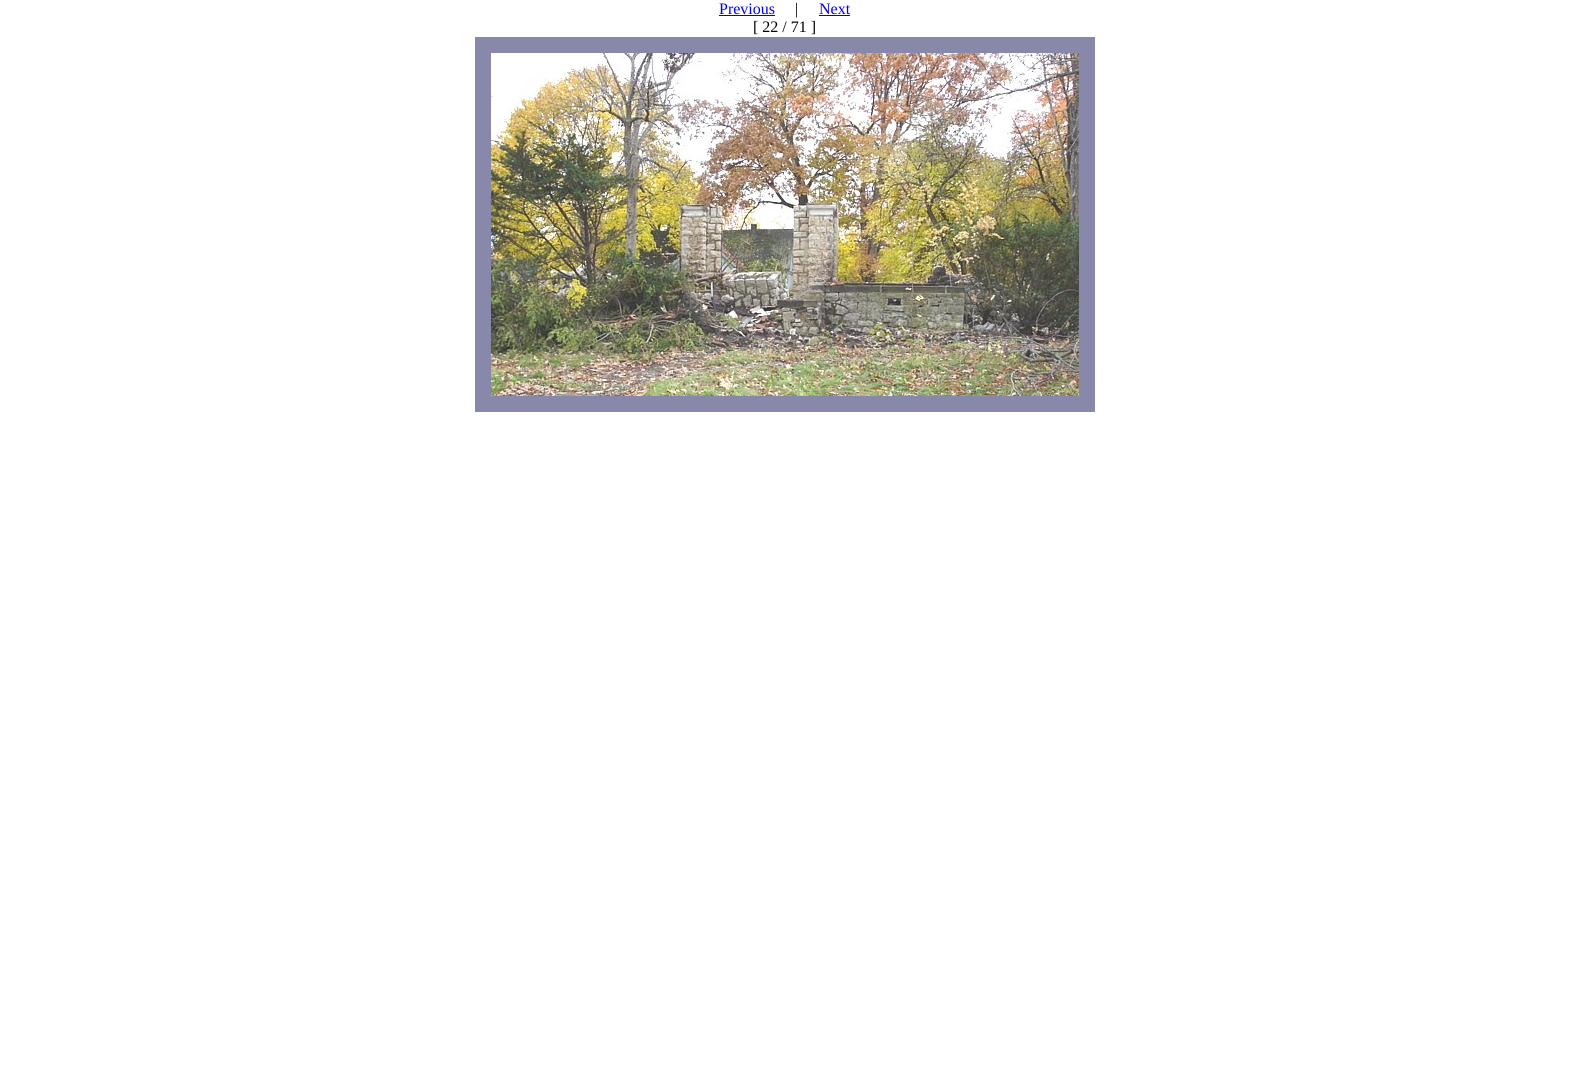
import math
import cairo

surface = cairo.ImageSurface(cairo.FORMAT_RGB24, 1569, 1077)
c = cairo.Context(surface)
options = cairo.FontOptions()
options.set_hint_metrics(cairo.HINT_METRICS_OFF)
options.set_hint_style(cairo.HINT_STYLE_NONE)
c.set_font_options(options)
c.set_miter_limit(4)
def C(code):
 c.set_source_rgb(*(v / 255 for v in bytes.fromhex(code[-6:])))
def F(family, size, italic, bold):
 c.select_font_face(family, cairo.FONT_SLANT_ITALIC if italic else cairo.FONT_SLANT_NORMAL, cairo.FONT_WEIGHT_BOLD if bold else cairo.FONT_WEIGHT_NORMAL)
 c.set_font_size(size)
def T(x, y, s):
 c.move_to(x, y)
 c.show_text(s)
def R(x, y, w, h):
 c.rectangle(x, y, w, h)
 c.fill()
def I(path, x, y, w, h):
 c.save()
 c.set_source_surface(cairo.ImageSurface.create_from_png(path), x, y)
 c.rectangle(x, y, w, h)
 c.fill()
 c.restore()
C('ffffff')
c.paint()
F('Liberation Serif',16,0,0)
C('0000ee')
T(719,14,'Previous')
R(719,15,56,1)
C('000000')
T(795,14,'|')
C('0000ee')
T(819,14,'Next')
R(819,15,31,1)
C('000000')
T(753,32,'[ 22 / 71 ]')
C('8888aa')
R(475,37,620,375)
I('1.png',491,53,588,343)
surface.write_to_png('o.png')
